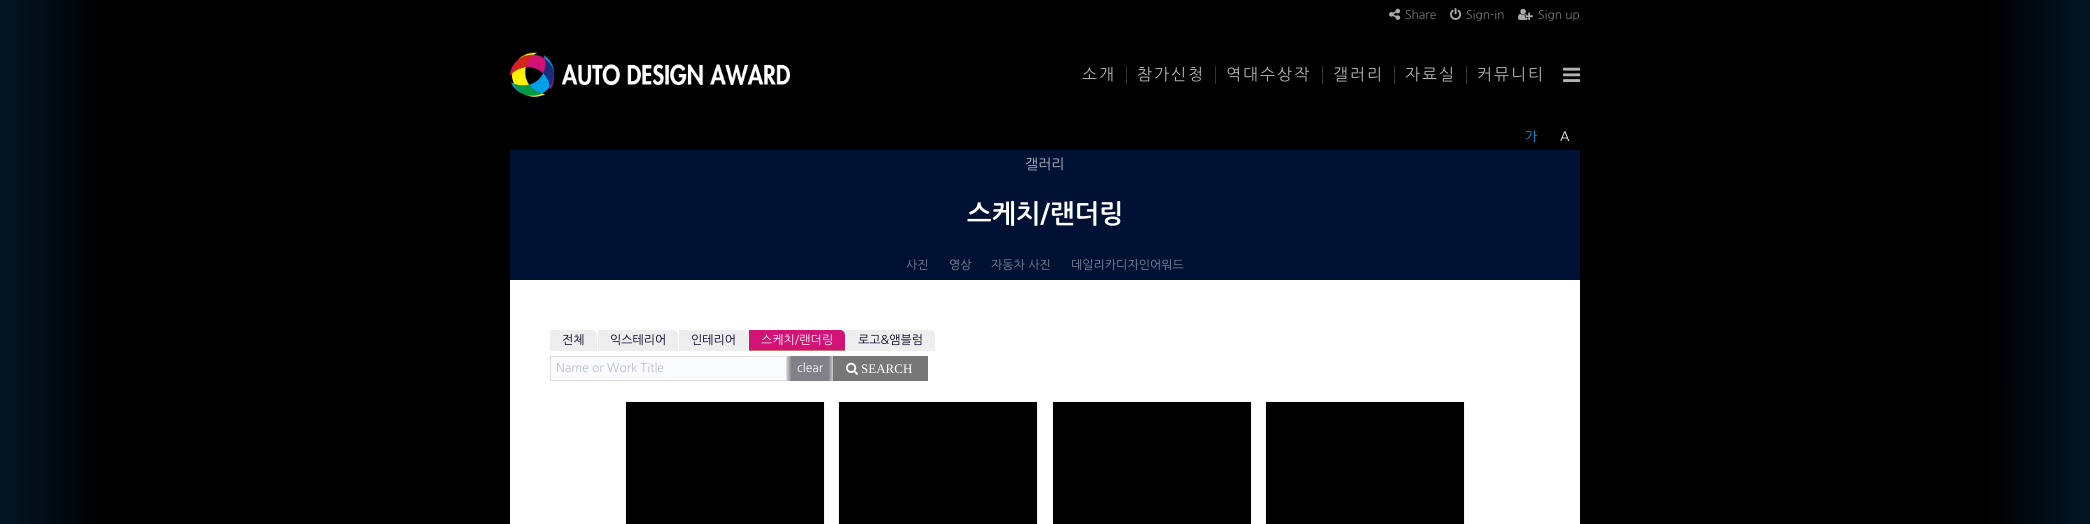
import math
import cairo

surface = cairo.ImageSurface(cairo.FORMAT_RGB24, 2090, 524)
c = cairo.Context(surface)
options = cairo.FontOptions()
options.set_hint_metrics(cairo.HINT_METRICS_OFF)
options.set_hint_style(cairo.HINT_STYLE_NONE)
c.set_font_options(options)
c.set_miter_limit(4)
def C(code):
 c.set_source_rgb(*(v / 255 for v in bytes.fromhex(code[-6:])))
def F(family, size, italic, bold):
 c.select_font_face(family, cairo.FONT_SLANT_ITALIC if italic else cairo.FONT_SLANT_NORMAL, cairo.FONT_WEIGHT_BOLD if bold else cairo.FONT_WEIGHT_NORMAL)
 c.set_font_size(size)
def T(x, y, s):
 c.move_to(x, y)
 c.show_text(s)
def L(x, y, s, letter, word):
 c.move_to(x, y)
 for ch in s:
  c.show_text(ch)
  c.rel_move_to(letter + word * (ch == ' '), 0)
def R(x, y, w, h):
 c.rectangle(x, y, w, h)
 c.fill()
def I(path, x, y, w, h):
 c.save()
 c.set_source_surface(cairo.ImageSurface.create_from_png(path), x, y)
 c.rectangle(x, y, w, h)
 c.fill()
 c.restore()
C('ffffff')
c.paint()
gradient = cairo.LinearGradient(0,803,2090,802)
gradient.add_color_stop_rgba(0,0.012,0.086,0.145,1)
gradient.add_color_stop_rgba(.05,0,0,0,1)
gradient.add_color_stop_rgba(.95,0,0,0,1)
gradient.add_color_stop_rgba(1,0.012,0.086,0.145,1)
c.set_source(gradient)
R(0,0,2090,524)
I('1.png',1389,8,12,12)
F('NanumGothic',12,0,0)
C('777777')
T(1405,19,'Share')
I('2.png',1450,7,12,13)
T(1466,19,'Sign-in')
I('3.png',1518,8,15,12)
T(1538,19,'Sign up')
I('4.png',510,52,280,45)
C('333333')
R(1126,66,1,18)
F('NanumGothic',16,0,0)
C('b3b3b3')
L(1082,80,'소개',2,0)
C('333333')
R(1215,66,1,18)
C('b3b3b3')
L(1137,80,'참가신청',2,0)
C('333333')
R(1322,66,1,18)
C('b3b3b3')
L(1226,80,'역대수상작',2,0)
C('333333')
R(1394,66,1,18)
C('b3b3b3')
L(1333,80,'갤러리',2,0)
C('333333')
R(1466,66,1,18)
C('b3b3b3')
L(1405,80,'자료실',2,0)
L(1477,80,'커뮤니티',2,0)
I('5.png',1563,67,18,15)
F('NanumGothic',13,0,0)
C('00a0e9')
T(1525,141,'가')
C('ffffff')
T(1560,141,'A')
R(510,280,1070,244)
C('001133')
R(510,150,1070,130)
F('NanumGothic',14,0,0)
C('b3b8c2')
T(1025,169,'갤러리')
F('NanumGothic',12,0,0)
C('808899')
T(906,269,'사진')
T(949,269,'영상')
T(991,269,'자동차 사진')
T(1071,269,'데일리카디자인어워드')
F('NanumGothic',26,0,1)
C('ffffff')
T(967,223,'스케치/랜더링')
C('eeeeee')
c.new_path()
c.move_to(550,330)
c.line_to(592,330)
c.curve_to(595,330,597,332,597,335)
c.line_to(597,351)
c.line_to(550,351)
c.close_path()
c.fill()
F('NanumGothic',12,0,0)
C('000027')
T(562,344,'전체')
C('eeeeee')
c.new_path()
c.move_to(598,330)
c.line_to(673,330)
c.curve_to(676,330,678,332,678,335)
c.line_to(678,351)
c.line_to(598,351)
c.close_path()
c.fill()
C('000027')
T(610,344,'익스테리어')
C('eeeeee')
c.new_path()
c.move_to(679,330)
c.line_to(743,330)
c.curve_to(746,330,748,332,748,335)
c.line_to(748,351)
c.line_to(679,351)
c.close_path()
c.fill()
C('000027')
T(691,344,'인테리어')
C('d31276')
c.new_path()
c.move_to(749,330)
c.line_to(840,330)
c.curve_to(843,330,845,332,845,335)
c.line_to(845,351)
c.line_to(749,351)
c.close_path()
c.fill()
C('cc7777')
R(749,350,96,1)
C('ffffff')
T(761,344,'스케치/랜더링')
C('eeeeee')
c.new_path()
c.move_to(846,330)
c.line_to(930,330)
c.curve_to(933,330,935,332,935,335)
c.line_to(935,351)
c.line_to(846,351)
c.close_path()
c.fill()
C('000027')
T(858,344,'로고&앰블럼')
C('fafbfc')
c.rectangle(550.5,356.5,236,24)
c.fill_preserve()
C('dddddd')
c.set_line_width(1)
c.stroke()
C('b6bdd6')
T(556,372,'Name or Work Title')
gradient = cairo.LinearGradient(787,369,833,369)
gradient.add_color_stop_rgba(0,0.8,0.8,0.8,1)
gradient.add_color_stop_rgba(.1,0.506,0.502,0.533,1)
gradient.add_color_stop_rgba(.9,0.506,0.502,0.533,1)
gradient.add_color_stop_rgba(1,0.8,0.8,0.8,1)
c.set_source(gradient)
R(787,356,46,25)
C('ffffff')
T(797,372,'clear')
C('777777')
R(833,356,95,25)
I('6.png',846,362,12,13)
F('Liberation Serif',13,0,0)
C('ffffff')
T(861,373,'SEARCH')
C('000000')
c.rectangle(625.5,401.5,199,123)
c.fill_preserve()
C('f3f3f3')
c.stroke()
C('000000')
c.rectangle(838.5,401.5,199,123)
c.fill_preserve()
C('f3f3f3')
c.stroke()
C('000000')
c.rectangle(1052.5,401.5,199,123)
c.fill_preserve()
C('f3f3f3')
c.stroke()
C('000000')
c.rectangle(1265.5,401.5,199,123)
c.fill_preserve()
C('f3f3f3')
c.stroke()
surface.write_to_png('o.png')
